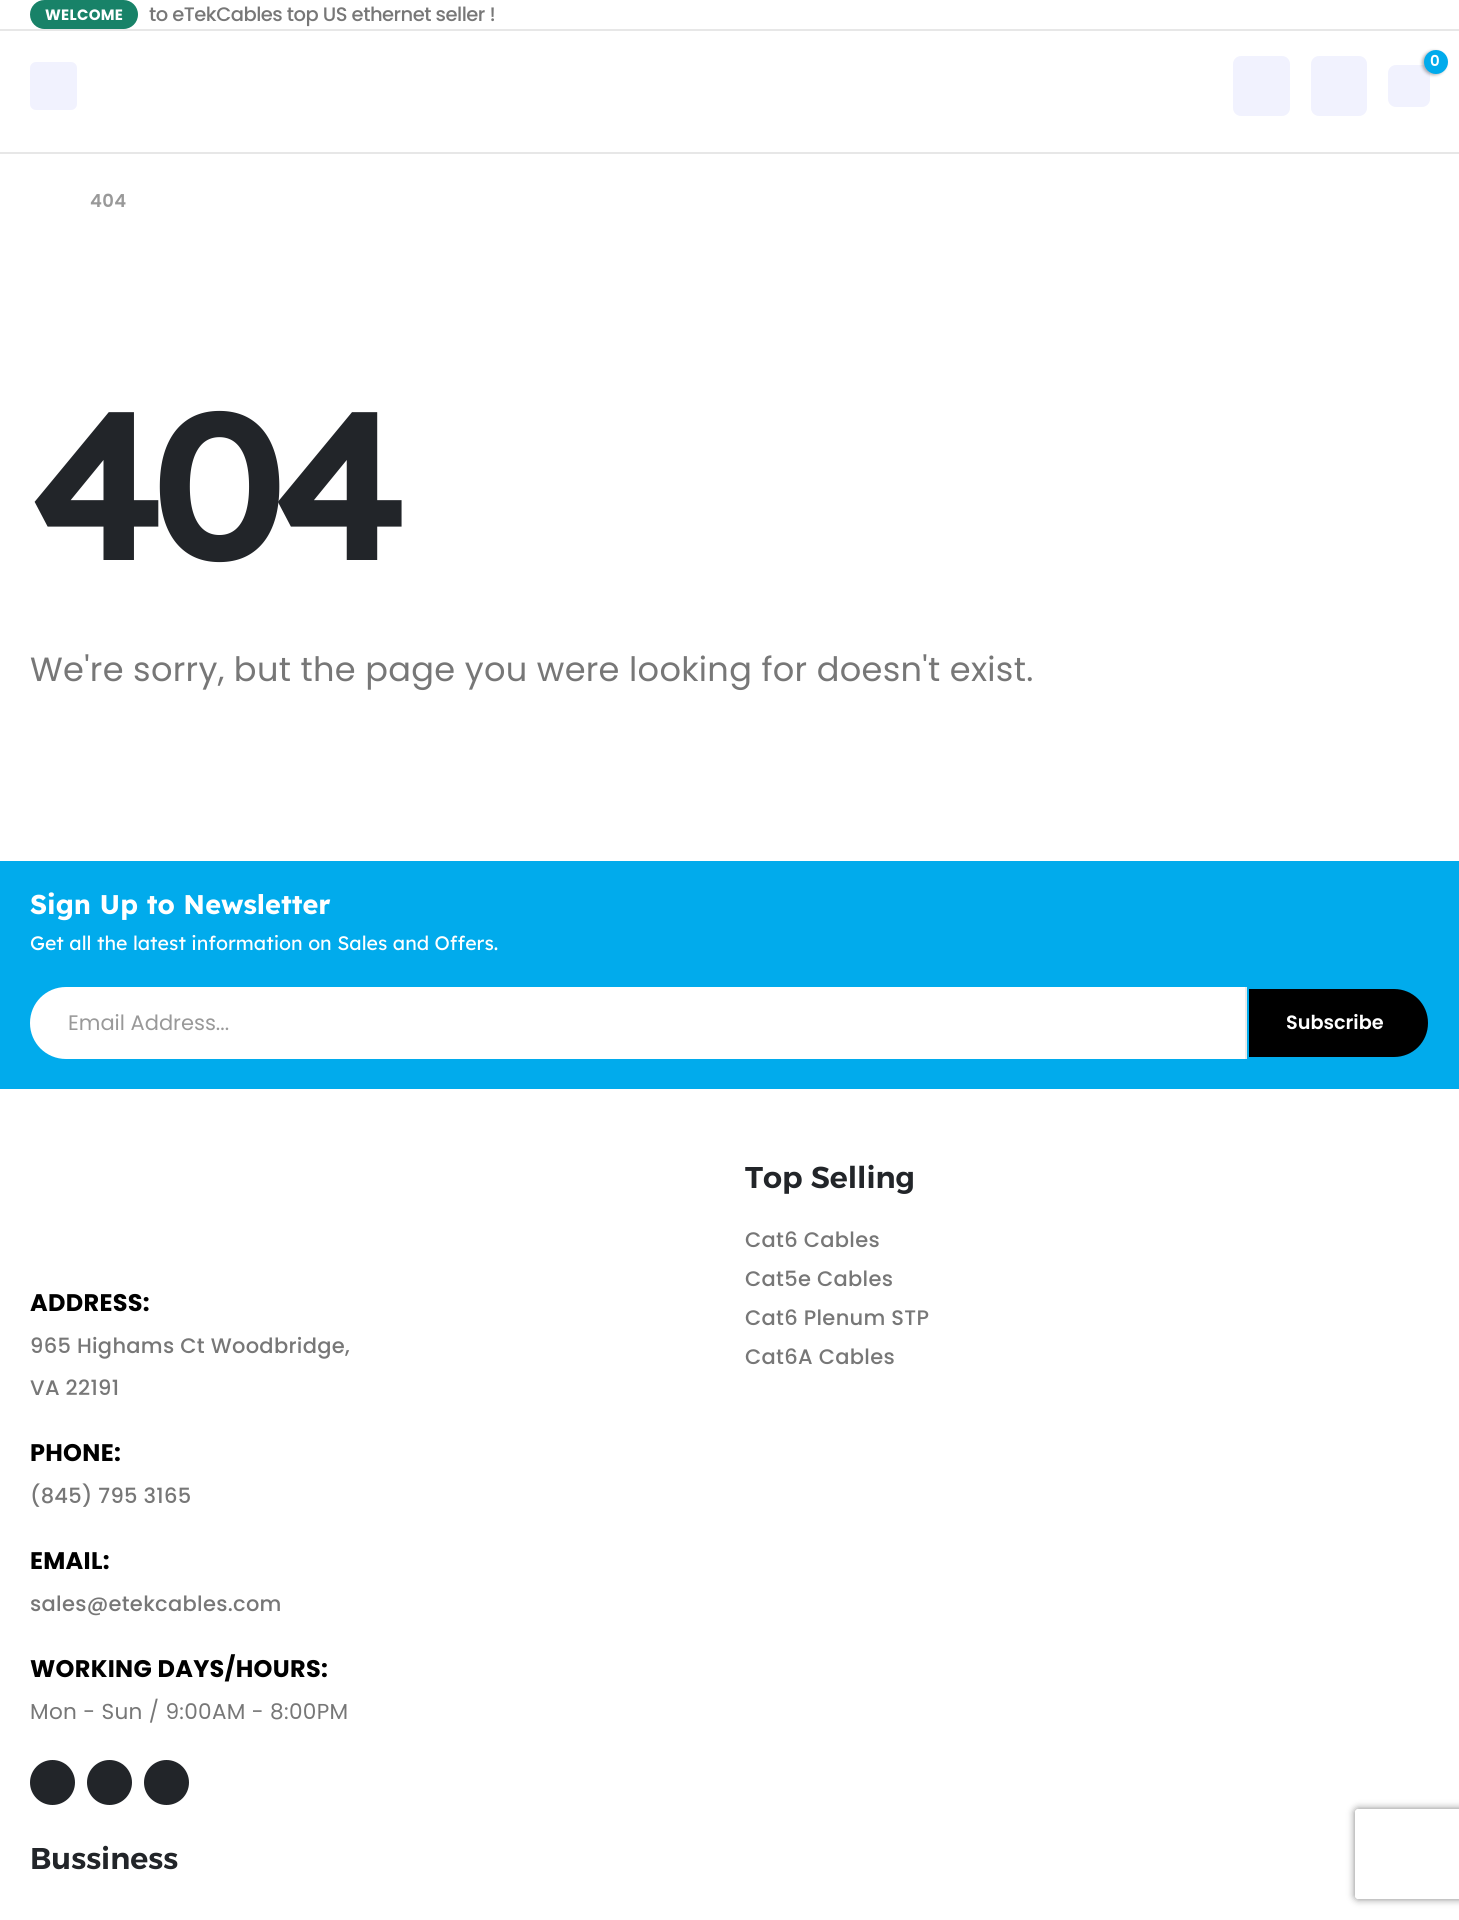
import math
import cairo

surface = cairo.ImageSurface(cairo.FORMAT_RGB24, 1459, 1920)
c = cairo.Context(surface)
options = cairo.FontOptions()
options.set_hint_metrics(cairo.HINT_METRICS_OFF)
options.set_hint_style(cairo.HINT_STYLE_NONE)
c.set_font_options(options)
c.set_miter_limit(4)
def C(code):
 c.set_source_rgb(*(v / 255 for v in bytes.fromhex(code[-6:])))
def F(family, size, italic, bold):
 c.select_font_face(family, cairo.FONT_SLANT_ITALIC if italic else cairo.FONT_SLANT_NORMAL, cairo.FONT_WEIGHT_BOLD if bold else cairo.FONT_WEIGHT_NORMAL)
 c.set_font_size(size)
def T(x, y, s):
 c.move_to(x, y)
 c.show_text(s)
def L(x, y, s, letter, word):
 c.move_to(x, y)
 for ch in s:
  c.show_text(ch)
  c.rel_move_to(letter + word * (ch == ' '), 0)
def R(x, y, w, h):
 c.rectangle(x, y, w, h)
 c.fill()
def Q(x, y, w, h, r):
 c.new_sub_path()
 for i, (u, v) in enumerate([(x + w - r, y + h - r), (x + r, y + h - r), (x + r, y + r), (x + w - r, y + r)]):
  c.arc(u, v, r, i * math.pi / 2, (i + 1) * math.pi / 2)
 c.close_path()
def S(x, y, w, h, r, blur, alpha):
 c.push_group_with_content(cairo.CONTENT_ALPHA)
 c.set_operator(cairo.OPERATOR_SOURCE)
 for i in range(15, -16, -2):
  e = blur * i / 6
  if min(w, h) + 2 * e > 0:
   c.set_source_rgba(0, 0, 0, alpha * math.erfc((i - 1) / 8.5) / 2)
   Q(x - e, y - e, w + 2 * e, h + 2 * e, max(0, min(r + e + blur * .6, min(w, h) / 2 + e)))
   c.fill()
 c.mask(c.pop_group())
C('ffffff')
c.paint()
C('e7e7e7')
R(0,29,1459,2)
C('188268')
Q(30,0,108,29,14.5)
c.fill()
F('Poppins',15,0,1)
C('ffffff')
L(45,20,'WELCOME',.3,0)
F('Poppins Medium',19.5,0,0)
C('777777')
L(149,21,'to eTekCables top US ethernet seller !',-.5,0)
C('f1f2fe')
Q(30,62,47,48,6)
c.fill()
Q(1233,56,57,60,8)
c.fill()
Q(1311,56,56,60,8)
c.fill()
Q(1388,65,42,42,8)
c.fill()
C('000000')
S(1422,51,24,24,12,1.5,.3)
C('01abec')
c.arc(1436,62,12,0,2 * math.pi)
c.fill()
F('Poppins SemiBold',15,0,0)
C('ffffff')
L(1430,66,'0',.3,0)
C('e7e7e7')
R(0,152,1459,2)
F('Poppins SemiBold',18,0,0)
C('999999')
L(90,207,'404',.3,0)
F('Lexend SemiBold',210,0,0)
C('222529')
L(30,560,'404',-15,0)
F('Poppins',33.6,0,0)
C('777777')
L(30,681,'We\'re sorry, but the page you were looking for doesn\'t exist.',.3,0)
C('01abec')
R(0,861,1459,228)
F('Lexend',27,0,1)
C('ffffff')
T(30,914,'Sign Up to Newsletter')
F('Lexend',19.5,0,0)
T(30,950,'Get all the latest information on Sales and Offers.')
c.new_path()
c.move_to(66,987)
c.line_to(1247,987)
c.line_to(1247,1059)
c.line_to(66,1059)
c.curve_to(46,1059,30,1043,30,1023)
c.curve_to(30,1003,46,987,66,987)
c.close_path()
c.fill()
C('ebebeb')
R(1245,987,2,72)
F('Poppins',21,0,0)
C('999999')
T(68,1030,'Email Address...')
C('000000')
c.new_path()
c.move_to(1248,988)
c.line_to(1394,988)
c.curve_to(1413.5,988,1429,1003.5,1429,1023)
c.curve_to(1429,1042.5,1413.5,1058,1394,1058)
c.line_to(1248,1058)
c.close_path()
c.fill_preserve()
C('01abec')
c.stroke()
F('Poppins SemiBold',19.25,0,0)
C('ffffff')
T(1286,1029,'Subscribe')
F('Alexandria SemiBold',30,0,0)
C('222529')
T(745,1188,'Top Selling')
F('Poppins Medium',21,0,0)
C('777777')
L(745,1247,'Cat6 Cables',.3,0)
L(745,1286,'Cat5e Cables',.3,0)
L(745,1325,'Cat6 Plenum STP',.3,0)
L(745,1364,'Cat6A Cables',.3,0)
F('Poppins',24,0,1)
C('000000')
L(30,1311,'ADDRESS:',.3,0)
F('Poppins Medium',21,0,0)
C('777777')
L(30,1353,'965 Highams Ct Woodbridge,',.3,0)
L(30,1395,'VA 22191',.3,0)
F('Poppins',24,0,1)
C('000000')
L(30,1461,'PHONE:',.3,0)
F('Poppins Medium',21,0,0)
C('777777')
L(30,1503,'(845) 795 3165',.3,0)
F('Poppins',24,0,1)
C('000000')
L(30,1569,'EMAIL:',.3,0)
F('Poppins Medium',21,0,0)
C('777777')
L(30,1611,'sales@etekcables.com',.3,0)
F('Poppins',24,0,1)
C('000000')
L(30,1677,'WORKING DAYS/HOURS:',.3,0)
F('Poppins',21.6,0,0)
C('777777')
L(30,1719,'Mon - Sun / 9:00AM - 8:00PM',.3,0)
C('222529')
c.new_path()
c.arc(52.5,1782.5,22.5,0,2 * math.pi)
c.fill()
c.arc(109.5,1782.5,22.5,0,2 * math.pi)
c.fill()
c.arc(166.5,1782.5,22.5,0,2 * math.pi)
c.fill()
F('Alexandria SemiBold',30,0,0)
T(30,1869,'Bussiness')
c.save()
c.set_fill_rule(cairo.FILL_RULE_EVEN_ODD)
c.new_path()
c.move_to(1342,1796)
c.line_to(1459,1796)
c.line_to(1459,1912)
c.line_to(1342,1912)
c.close_path()
c.move_to(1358,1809)
c.line_to(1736,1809)
c.curve_to(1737.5,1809,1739,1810.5,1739,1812)
c.line_to(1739,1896)
c.curve_to(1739,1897.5,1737.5,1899,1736,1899)
c.line_to(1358,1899)
c.curve_to(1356.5,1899,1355,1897.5,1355,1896)
c.line_to(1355,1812)
c.curve_to(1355,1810.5,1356.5,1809,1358,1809)
c.close_path()
c.clip()
C('808080')
S(1355,1809,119,90,3,4,1)
c.restore()
surface.write_to_png('o.png')
